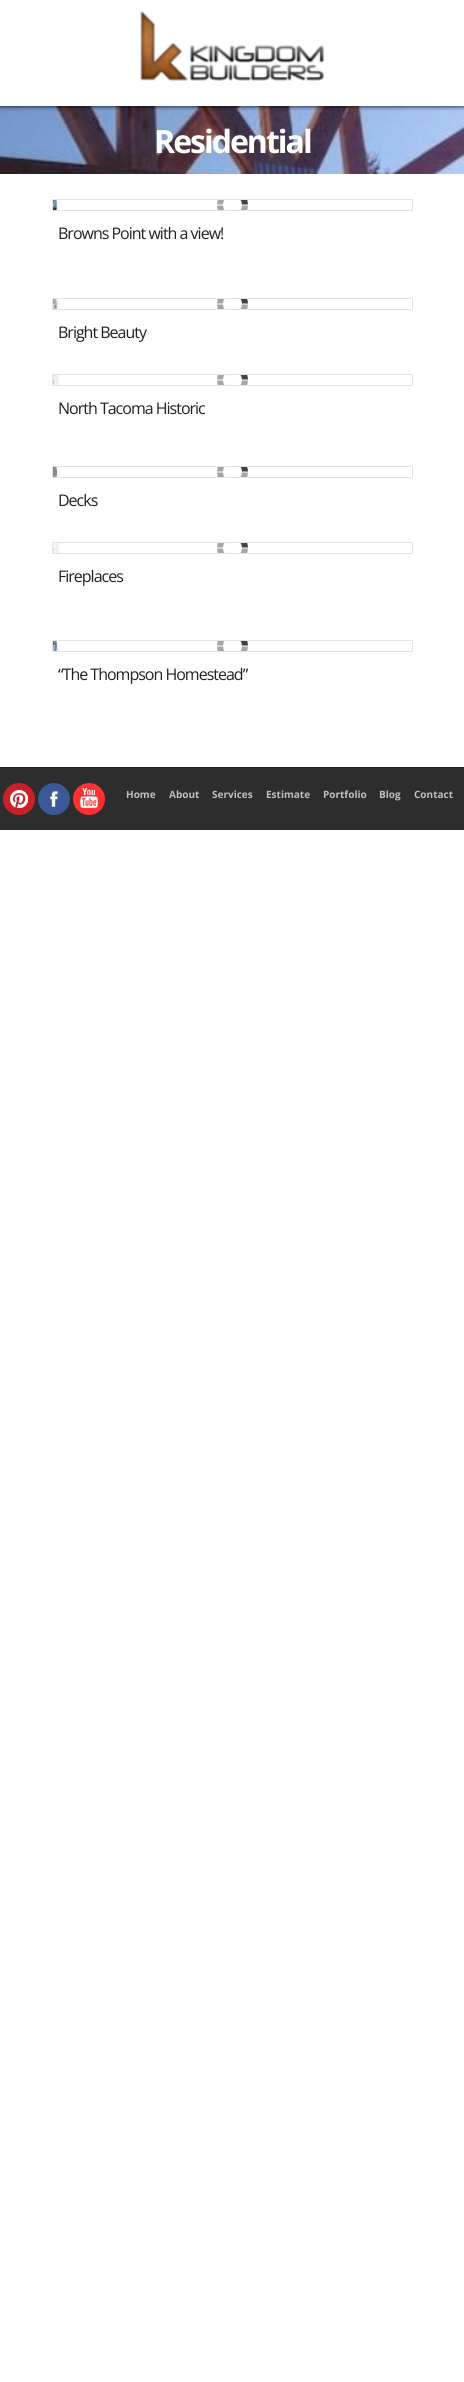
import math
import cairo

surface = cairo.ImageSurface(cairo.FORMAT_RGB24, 464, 2382)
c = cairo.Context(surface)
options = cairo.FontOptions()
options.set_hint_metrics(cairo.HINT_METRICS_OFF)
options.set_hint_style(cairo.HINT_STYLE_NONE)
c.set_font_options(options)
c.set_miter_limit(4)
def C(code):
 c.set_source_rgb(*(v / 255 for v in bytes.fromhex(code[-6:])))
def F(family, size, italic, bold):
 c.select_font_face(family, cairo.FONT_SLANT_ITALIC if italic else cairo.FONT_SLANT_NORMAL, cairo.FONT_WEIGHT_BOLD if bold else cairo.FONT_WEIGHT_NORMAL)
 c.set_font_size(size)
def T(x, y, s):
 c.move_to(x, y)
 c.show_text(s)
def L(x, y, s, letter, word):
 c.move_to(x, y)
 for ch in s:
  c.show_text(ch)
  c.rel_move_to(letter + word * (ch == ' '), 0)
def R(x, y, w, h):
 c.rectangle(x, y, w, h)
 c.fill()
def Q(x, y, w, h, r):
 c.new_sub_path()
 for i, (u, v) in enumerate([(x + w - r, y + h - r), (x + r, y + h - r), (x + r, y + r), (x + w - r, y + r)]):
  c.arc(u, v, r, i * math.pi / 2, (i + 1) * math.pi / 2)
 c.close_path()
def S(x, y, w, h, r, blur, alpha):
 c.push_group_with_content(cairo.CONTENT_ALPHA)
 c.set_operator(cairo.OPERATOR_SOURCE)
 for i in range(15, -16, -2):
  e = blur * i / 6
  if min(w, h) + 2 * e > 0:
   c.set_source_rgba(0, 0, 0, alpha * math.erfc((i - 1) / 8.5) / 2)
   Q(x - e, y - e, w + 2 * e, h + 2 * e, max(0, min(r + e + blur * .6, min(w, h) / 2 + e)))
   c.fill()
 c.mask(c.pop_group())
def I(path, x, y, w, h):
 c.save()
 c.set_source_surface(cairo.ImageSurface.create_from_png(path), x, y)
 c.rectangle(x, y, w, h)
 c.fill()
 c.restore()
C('ffffff')
c.paint()
I('2.png',0,106,464,68)
C('000000')
S(0,1,464,106,0,2,.75)
C('ffffff')
R(0,0,464,106)
I('1.png',140,10,185,71)
F('Open Sans',32,0,1)
L(154,153,'Residential',-2,0)
I('3.png',217,200,31,10)
c.rectangle(52.5,199.5,360,11)
C('e4e4e4')
c.set_line_width(1)
c.stroke()
c.save()
c.rectangle(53,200,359,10)
c.clip()
C('000000')
S(17,186,40,40,20,2,.15)
c.restore()
I('4.png',53,200,4,10)
F('Open Sans',16,0,0)
C('231f20')
L(58,239,'Browns Point with a view!',-1,0)
I('3.png',217,299,31,10)
c.rectangle(52.5,298.5,360,11)
C('e4e4e4')
c.stroke()
c.save()
c.rectangle(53,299,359,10)
c.clip()
C('000000')
S(17,285,40,40,20,2,.15)
c.restore()
I('5.png',53,299,4,10)
C('231f20')
L(58,338,'Bright Beauty',-1,0)
I('3.png',217,375,31,10)
c.rectangle(52.5,374.5,360,11)
C('e4e4e4')
c.stroke()
c.save()
c.rectangle(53,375,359,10)
c.clip()
C('000000')
S(17,361,40,40,20,2,.15)
c.restore()
I('6.png',53,375,4,10)
C('231f20')
L(58,414,'North Tacoma Historic',-1,0)
I('3.png',217,467,31,10)
c.rectangle(52.5,466.5,360,11)
C('e4e4e4')
c.stroke()
c.save()
c.rectangle(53,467,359,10)
c.clip()
C('000000')
S(17,453,40,40,20,2,.15)
c.restore()
I('7.png',53,467,4,10)
C('231f20')
L(58,506,'Decks',-1,0)
I('3.png',217,543,31,10)
c.rectangle(52.5,542.5,360,11)
C('e4e4e4')
c.stroke()
c.save()
c.rectangle(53,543,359,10)
c.clip()
C('000000')
S(17,529,40,40,20,2,.15)
c.restore()
I('8.png',53,543,4,10)
C('231f20')
L(58,582,'Fireplaces',-1,0)
I('3.png',217,641,31,10)
c.rectangle(52.5,640.5,360,11)
C('e4e4e4')
c.stroke()
c.save()
c.rectangle(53,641,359,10)
c.clip()
C('000000')
S(17,627,40,40,20,2,.15)
c.restore()
I('9.png',53,641,4,10)
C('231f20')
L(58,680,'“The Thompson Homestead”',-1,0)
C('2d2d2d')
R(0,768,464,62)
C('232323')
R(0,767,464,1)
I('10.png',3,783,32,32)
I('11.png',38,783,32,32)
I('12.png',73,783,32,32)
F('Open Sans',10,0,1)
C('c0c0c0')
T(126,798,'Home')
T(169,798,'About')
T(212,798,'Services')
T(266,798,'Estimate')
T(323,798,'Portfolio')
T(379,798,'Blog')
T(414,798,'Contact')
surface.write_to_png('o.png')
